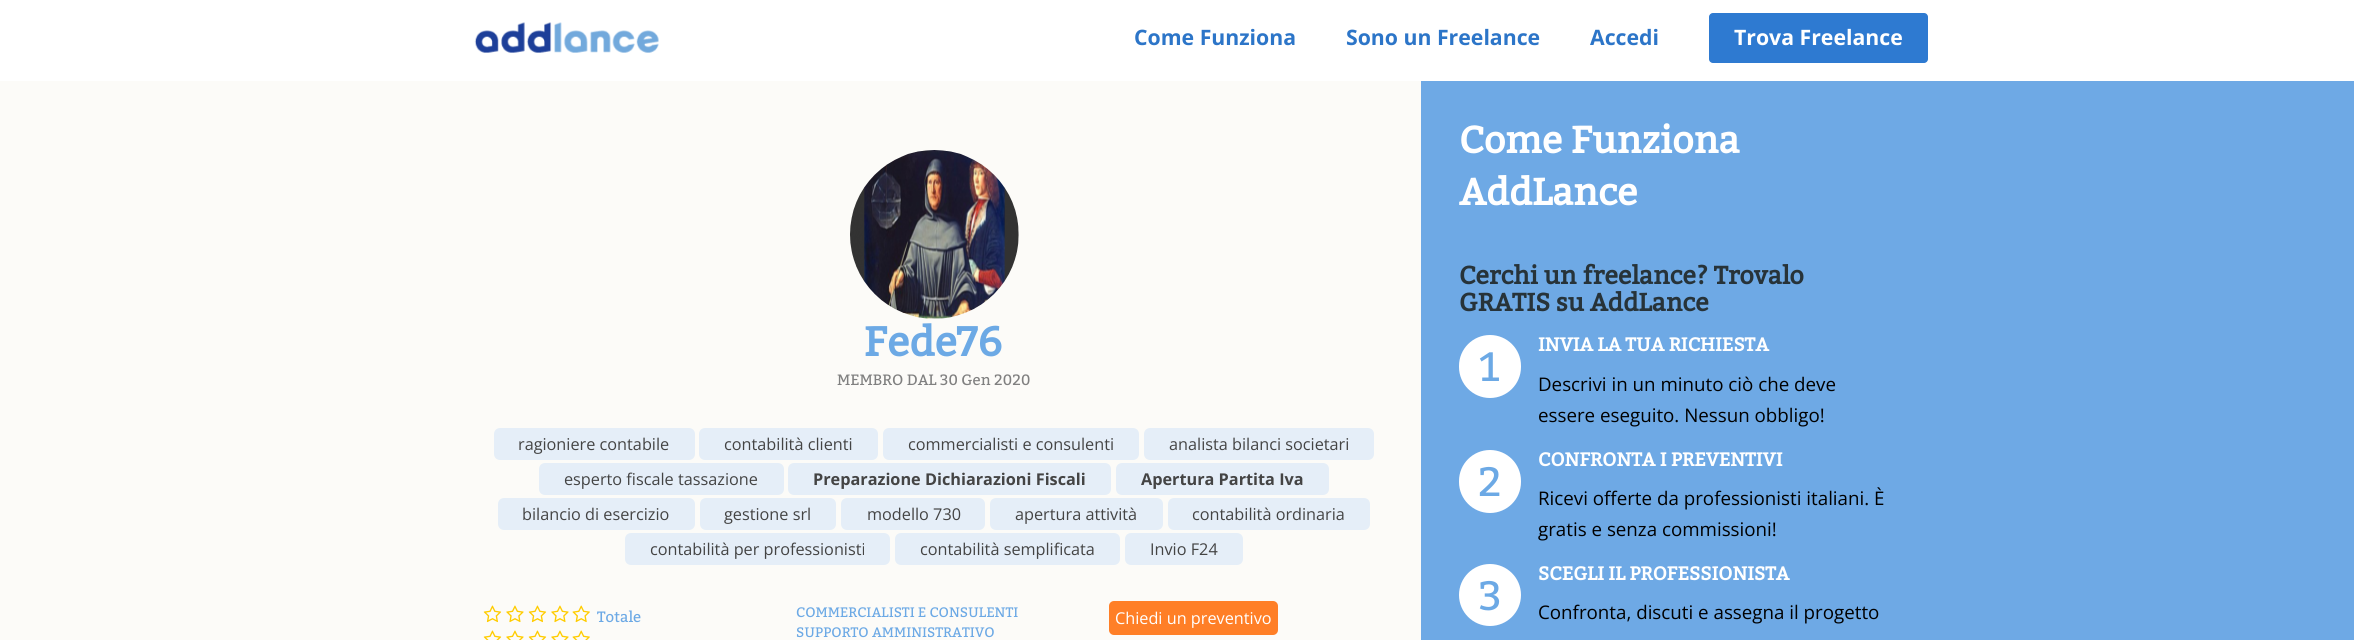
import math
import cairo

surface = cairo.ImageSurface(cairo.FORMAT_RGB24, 2354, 640)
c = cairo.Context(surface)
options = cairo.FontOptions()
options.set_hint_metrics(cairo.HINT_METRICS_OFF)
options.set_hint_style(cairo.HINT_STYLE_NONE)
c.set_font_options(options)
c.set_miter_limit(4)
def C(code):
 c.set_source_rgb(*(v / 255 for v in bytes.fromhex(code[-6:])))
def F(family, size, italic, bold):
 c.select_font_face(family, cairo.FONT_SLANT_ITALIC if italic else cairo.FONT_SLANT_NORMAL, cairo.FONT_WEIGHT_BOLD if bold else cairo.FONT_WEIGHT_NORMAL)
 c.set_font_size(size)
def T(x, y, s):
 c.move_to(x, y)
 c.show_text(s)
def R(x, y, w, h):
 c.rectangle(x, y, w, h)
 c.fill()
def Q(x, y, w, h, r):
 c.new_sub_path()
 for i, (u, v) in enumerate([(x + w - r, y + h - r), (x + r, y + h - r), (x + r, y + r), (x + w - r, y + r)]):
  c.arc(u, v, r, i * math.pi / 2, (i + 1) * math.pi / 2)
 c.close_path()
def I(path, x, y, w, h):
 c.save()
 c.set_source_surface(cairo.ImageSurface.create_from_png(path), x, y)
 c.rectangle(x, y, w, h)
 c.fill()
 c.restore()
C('ffffff')
c.paint()
I('1.png',474,22,185,31)
F('Open Sans',21.25,0,1)
C('2c75c8')
T(1134,45,'Come Funziona')
T(1346,45,'Sono un Freelance')
T(1590,45,'Accedi')
C('2e7ad1')
Q(1709,13,219,50,4)
c.fill()
C('ffffff')
T(1734,45,'Trova Freelance')
C('fcfbf8')
R(0,81,1421,559)
I('2.png',850,150,169,169)
F('Bitter',41,0,1)
C('6ca9e5')
T(864,356,'Fede76')
F('Bitter',15,0,0)
C('808080')
T(837,385,'MEMBRO DAL 30 Gen 2020')
C('e5eef8')
Q(494,428,201,32,6)
c.fill()
F('Open Sans',16.25,0,0)
C('444444')
T(518,450,'ragioniere contabile')
C('e5eef8')
Q(699,428,179,32,6)
c.fill()
C('444444')
T(724,450,'contabilità clienti')
C('e5eef8')
Q(883,428,256,32,6)
c.fill()
C('444444')
T(908,450,'commercialisti e consulenti')
C('e5eef8')
Q(1144,428,230,32,6)
c.fill()
C('444444')
T(1169,450,'analista bilanci societari')
C('e5eef8')
Q(539,463,245,32,6)
c.fill()
C('444444')
T(564,485,'esperto fiscale tassazione')
C('e5eef8')
Q(788,463,323,32,6)
c.fill()
F('Open Sans',16.25,0,1)
C('444444')
T(813,485,'Preparazione Dichiarazioni Fiscali')
C('e5eef8')
Q(1116,463,213,32,6)
c.fill()
C('444444')
T(1141,485,'Apertura Partita Iva')
C('e5eef8')
Q(498,498,197,32,6)
c.fill()
F('Open Sans',16.25,0,0)
C('444444')
T(522,520,'bilancio di esercizio')
C('e5eef8')
Q(700,498,136,32,6)
c.fill()
C('444444')
T(724,520,'gestione srl')
C('e5eef8')
Q(841,498,144,32,6)
c.fill()
C('444444')
T(867,520,'modello 730')
C('e5eef8')
Q(990,498,173,32,6)
c.fill()
C('444444')
T(1015,520,'apertura attività')
C('e5eef8')
Q(1168,498,202,32,6)
c.fill()
C('444444')
T(1192,520,'contabilità ordinaria')
C('e5eef8')
Q(625,533,265,32,6)
c.fill()
C('444444')
T(650,555,'contabilità per professionisti')
C('e5eef8')
Q(895,533,225,32,6)
c.fill()
C('444444')
T(920,555,'contabilità semplificata')
C('e5eef8')
Q(1125,533,118,32,6)
c.fill()
C('444444')
T(1150,555,'Invio F24')
I('3.png',483,605,19,18)
I('4.png',506,605,18,18)
I('3.png',528,605,19,18)
I('4.png',551,605,18,18)
I('5.png',572,605,18,18)
F('Bitter',15,0,0)
C('6ca9e5')
T(597,622,'Totale')
I('6.png',483,630,19,10)
I('7.png',506,630,18,10)
I('6.png',528,630,19,10)
I('7.png',551,630,18,10)
I('8.png',572,630,18,10)
F('Bitter',13.75,0,0)
T(796,617,'COMMERCIALISTI E CONSULENTI')
T(796,637,'SUPPORTO AMMINISTRATIVO')
C('ff7f27')
Q(1109,601,169,34,5)
c.fill()
F('Open Sans',16.25,0,0)
C('ffffff')
T(1115,624,'Chiedi un preventivo')
C('6ea9e5')
R(1421,81,933,559)
F('Bitter',37.5,0,1)
C('ffffff')
T(1459,153,'Come Funziona')
T(1459,205,'AddLance')
F('Bitter',25,0,1)
C('273339')
T(1459,284,'Cerchi un freelance? Trovalo')
T(1459,311,'GRATIS su AddLance')
C('ffffff')
Q(1459,335,62,63,31)
c.fill()
F('Bitter',41,0,0)
C('6ca9e5')
T(1479,381,'1')
F('Bitter',18.75,0,1)
C('ffffff')
T(1538,351,'INVIA LA TUA RICHIESTA')
F('Open Sans',18.75,0,0)
C('000000')
T(1538,391,'Descrivi in un minuto ciò che deve')
T(1538,422,'essere eseguito. Nessun obbligo!')
C('ffffff')
Q(1459,450,62,63,31)
c.fill()
F('Bitter',41,0,0)
C('6ca9e5')
T(1478,496,'2')
F('Bitter',18.75,0,1)
C('ffffff')
T(1538,466,'CONFRONTA I PREVENTIVI')
F('Open Sans',18.75,0,0)
C('000000')
T(1538,505,'Ricevi offerte da professionisti italiani. È')
T(1538,536,'gratis e senza commissioni!')
C('ffffff')
c.new_path()
c.arc(1490,595,31,0,2 * math.pi)
c.fill()
F('Bitter',41,0,0)
C('6ca9e5')
T(1479,610,'3')
F('Bitter',18.75,0,1)
C('ffffff')
T(1538,580,'SCEGLI IL PROFESSIONISTA')
F('Open Sans',18.75,0,0)
C('000000')
T(1538,619,'Confronta, discuti e assegna il progetto')
surface.write_to_png('o.png')
